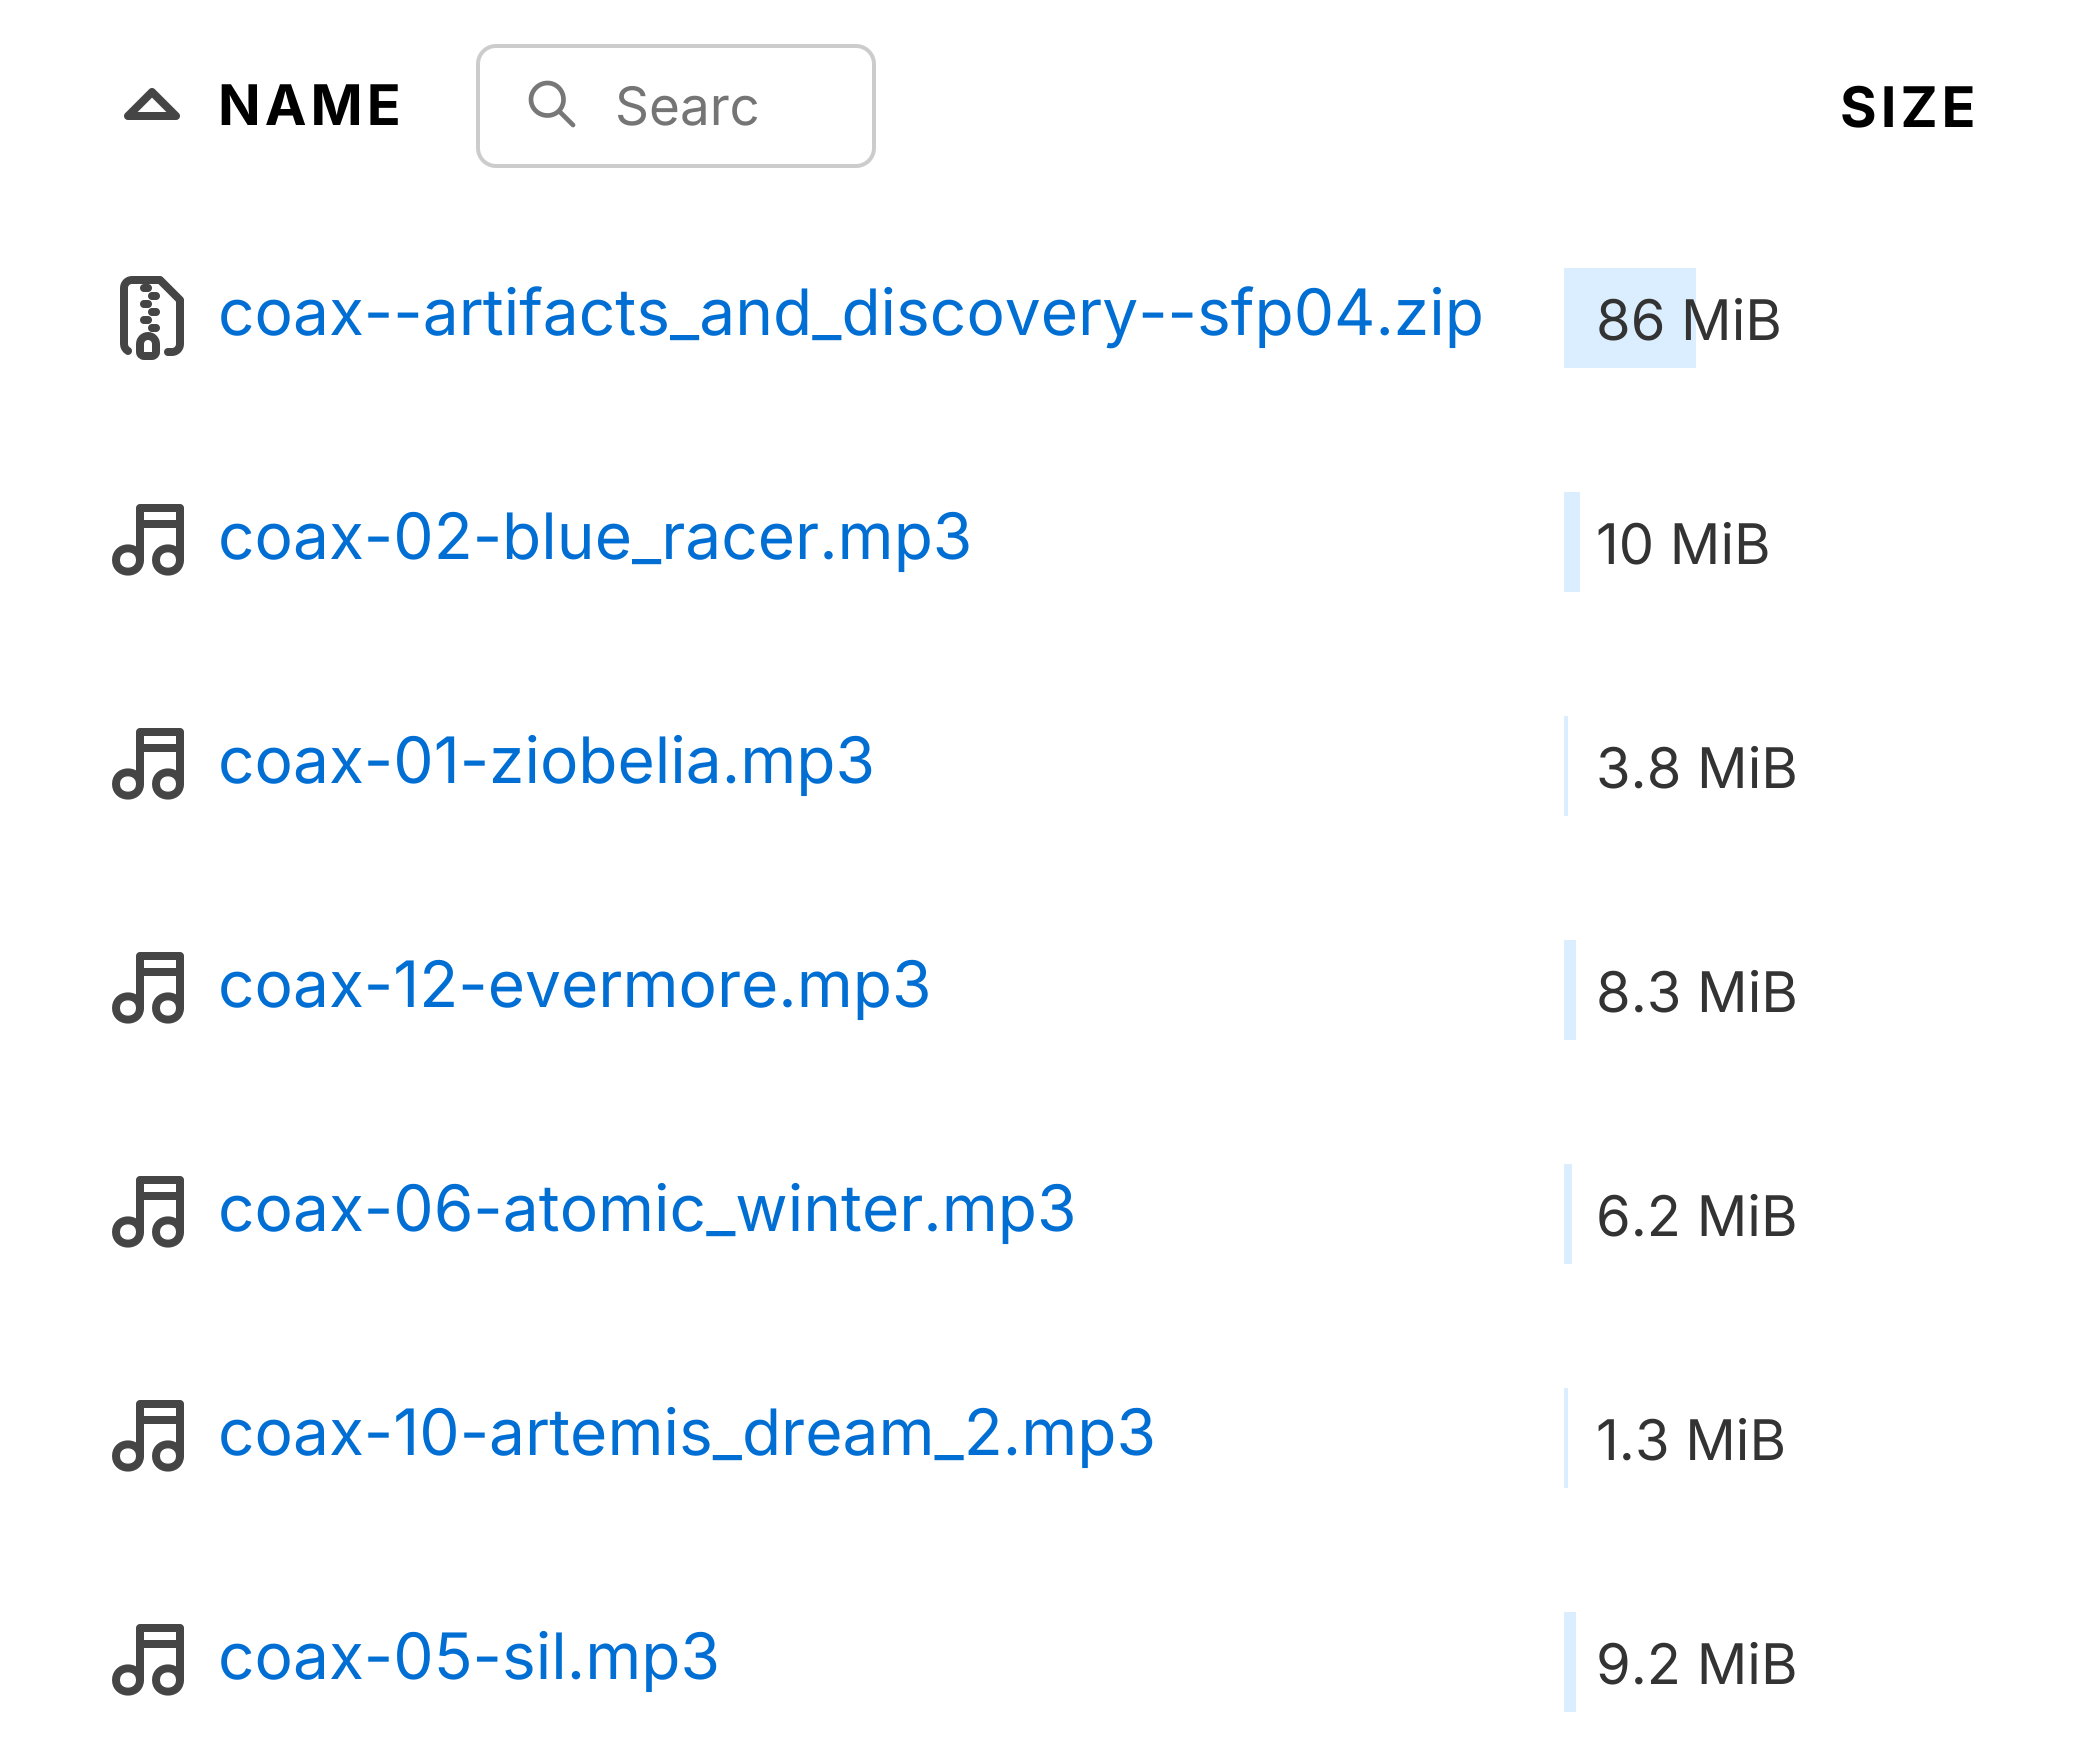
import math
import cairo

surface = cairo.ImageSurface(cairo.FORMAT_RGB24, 2081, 1764)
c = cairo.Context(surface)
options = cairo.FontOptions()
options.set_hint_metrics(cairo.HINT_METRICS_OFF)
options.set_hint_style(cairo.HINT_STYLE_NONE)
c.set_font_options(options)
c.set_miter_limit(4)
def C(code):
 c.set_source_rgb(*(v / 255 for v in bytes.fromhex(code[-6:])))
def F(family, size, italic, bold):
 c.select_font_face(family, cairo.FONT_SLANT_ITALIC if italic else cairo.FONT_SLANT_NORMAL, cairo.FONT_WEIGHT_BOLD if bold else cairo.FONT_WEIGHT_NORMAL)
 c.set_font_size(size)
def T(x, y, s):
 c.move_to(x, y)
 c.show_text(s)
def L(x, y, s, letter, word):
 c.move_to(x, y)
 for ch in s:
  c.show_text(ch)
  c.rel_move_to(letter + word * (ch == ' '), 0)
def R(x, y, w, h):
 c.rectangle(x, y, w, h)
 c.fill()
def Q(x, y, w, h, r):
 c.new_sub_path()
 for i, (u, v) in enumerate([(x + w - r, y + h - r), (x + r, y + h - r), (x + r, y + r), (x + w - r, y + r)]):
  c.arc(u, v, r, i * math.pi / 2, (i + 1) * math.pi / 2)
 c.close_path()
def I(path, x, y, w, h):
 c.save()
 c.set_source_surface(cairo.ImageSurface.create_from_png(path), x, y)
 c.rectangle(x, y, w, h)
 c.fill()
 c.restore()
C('ffffff')
c.paint()
c.new_path()
c.move_to(176,116)
c.line_to(152,92)
c.line_to(128,116)
c.line_to(176,116)
C('454545')
c.set_line_width(8)
c.set_line_cap(cairo.LINE_CAP_ROUND)
c.set_line_join(cairo.LINE_JOIN_ROUND)
c.stroke()
F('Inter',56,0,1)
C('000000')
L(218,125,'NAME',4,0)
c.new_path()
c.move_to(531,99.5)
c.curve_to(531,108.5,538.5,115.5,547.5,115.5)
c.curve_to(556.5,115.5,563.5,108.5,563.5,99.5)
c.curve_to(563.5,90.5,556.5,83,547.5,83)
c.curve_to(538.5,83,531,90.5,531,99.5)
c.move_to(573,125)
c.line_to(559,111)
C('777777')
c.set_line_width(4.7)
c.stroke()
Q(478,46,396,120,18)
C('cccccc')
c.set_line_width(4)
c.set_line_cap(cairo.LINE_CAP_BUTT)
c.set_line_join(cairo.LINE_JOIN_MITER)
c.stroke()
F('Inter',53,0,0)
C('757575')
T(615,125,'Searc')
F('Inter',56,0,1)
C('000000')
L(1840,127,'SIZE',4,0)
I('1.png',120,276,64,84)
F('Inter',64,0,0)
C('006ed3')
T(218,335,'coax--artifacts_and_discovery--sfp04.zip')
C('dbeeff')
R(1564,268,132,100)
F('Inter',56,0,0)
C('333333')
T(1596,340,'86 MiB')
c.new_path()
c.move_to(116,560)
c.curve_to(116,575.5,140,575.5,140,560)
c.curve_to(140,544.5,116,544.5,116,560)
C('454545')
c.set_line_width(8)
c.set_line_cap(cairo.LINE_CAP_ROUND)
c.set_line_join(cairo.LINE_JOIN_ROUND)
c.stroke()
c.new_path()
c.move_to(156,560)
c.curve_to(156,575.5,180,575.5,180,560)
c.curve_to(180,544.5,156,544.5,156,560)
c.stroke()
c.new_path()
c.move_to(140,560)
c.line_to(140,508)
c.line_to(180,508)
c.line_to(180,560)
c.move_to(140,524)
c.line_to(180,524)
c.stroke()
F('Inter',64,0,0)
C('006ed3')
T(218,559,'coax-02-blue_racer.mp3')
C('dbeeff')
R(1564,492,16,100)
F('Inter',56,0,0)
C('333333')
T(1596,564,'10 MiB')
c.new_path()
c.move_to(116,784)
c.curve_to(116,799.5,140,799.5,140,784)
c.curve_to(140,768.5,116,768.5,116,784)
C('454545')
c.stroke()
c.new_path()
c.move_to(156,784)
c.curve_to(156,799.5,180,799.5,180,784)
c.curve_to(180,768.5,156,768.5,156,784)
c.stroke()
c.new_path()
c.move_to(140,784)
c.line_to(140,732)
c.line_to(180,732)
c.line_to(180,784)
c.move_to(140,748)
c.line_to(180,748)
c.stroke()
F('Inter',64,0,0)
C('006ed3')
T(218,783,'coax-01-ziobelia.mp3')
C('dbeeff')
R(1564,716,4,100)
F('Inter',56,0,0)
C('333333')
T(1596,788,'3.8 MiB')
c.new_path()
c.move_to(116,1008)
c.curve_to(116,1023.5,140,1023.5,140,1008)
c.curve_to(140,992.5,116,992.5,116,1008)
C('454545')
c.stroke()
c.new_path()
c.move_to(156,1008)
c.curve_to(156,1023.5,180,1023.5,180,1008)
c.curve_to(180,992.5,156,992.5,156,1008)
c.stroke()
c.new_path()
c.move_to(140,1008)
c.line_to(140,956)
c.line_to(180,956)
c.line_to(180,1008)
c.move_to(140,972)
c.line_to(180,972)
c.stroke()
F('Inter',64,0,0)
C('006ed3')
T(218,1007,'coax-12-evermore.mp3')
C('dbeeff')
R(1564,940,12,100)
F('Inter',56,0,0)
C('333333')
T(1596,1012,'8.3 MiB')
c.new_path()
c.move_to(116,1232)
c.curve_to(116,1247.5,140,1247.5,140,1232)
c.curve_to(140,1216.5,116,1216.5,116,1232)
C('454545')
c.stroke()
c.new_path()
c.move_to(156,1232)
c.curve_to(156,1247.5,180,1247.5,180,1232)
c.curve_to(180,1216.5,156,1216.5,156,1232)
c.stroke()
c.new_path()
c.move_to(140,1232)
c.line_to(140,1180)
c.line_to(180,1180)
c.line_to(180,1232)
c.move_to(140,1196)
c.line_to(180,1196)
c.stroke()
F('Inter',64,0,0)
C('006ed3')
T(218,1231,'coax-06-atomic_winter.mp3')
C('dbeeff')
R(1564,1164,8,100)
F('Inter',56,0,0)
C('333333')
T(1596,1236,'6.2 MiB')
c.new_path()
c.move_to(116,1456)
c.curve_to(116,1471.5,140,1471.5,140,1456)
c.curve_to(140,1440.5,116,1440.5,116,1456)
C('454545')
c.stroke()
c.new_path()
c.move_to(156,1456)
c.curve_to(156,1471.5,180,1471.5,180,1456)
c.curve_to(180,1440.5,156,1440.5,156,1456)
c.stroke()
c.new_path()
c.move_to(140,1456)
c.line_to(140,1404)
c.line_to(180,1404)
c.line_to(180,1456)
c.move_to(140,1420)
c.line_to(180,1420)
c.stroke()
F('Inter',64,0,0)
C('006ed3')
T(218,1455,'coax-10-artemis_dream_2.mp3')
C('dbeeff')
R(1564,1388,4,100)
F('Inter',56,0,0)
C('333333')
T(1596,1460,'1.3 MiB')
c.new_path()
c.move_to(116,1680)
c.curve_to(116,1695.5,140,1695.5,140,1680)
c.curve_to(140,1664.5,116,1664.5,116,1680)
C('454545')
c.stroke()
c.new_path()
c.move_to(156,1680)
c.curve_to(156,1695.5,180,1695.5,180,1680)
c.curve_to(180,1664.5,156,1664.5,156,1680)
c.stroke()
c.new_path()
c.move_to(140,1680)
c.line_to(140,1628)
c.line_to(180,1628)
c.line_to(180,1680)
c.move_to(140,1644)
c.line_to(180,1644)
c.stroke()
F('Inter',64,0,0)
C('006ed3')
T(218,1679,'coax-05-sil.mp3')
C('dbeeff')
R(1564,1612,12,100)
F('Inter',56,0,0)
C('333333')
T(1596,1684,'9.2 MiB')
surface.write_to_png('o.png')
